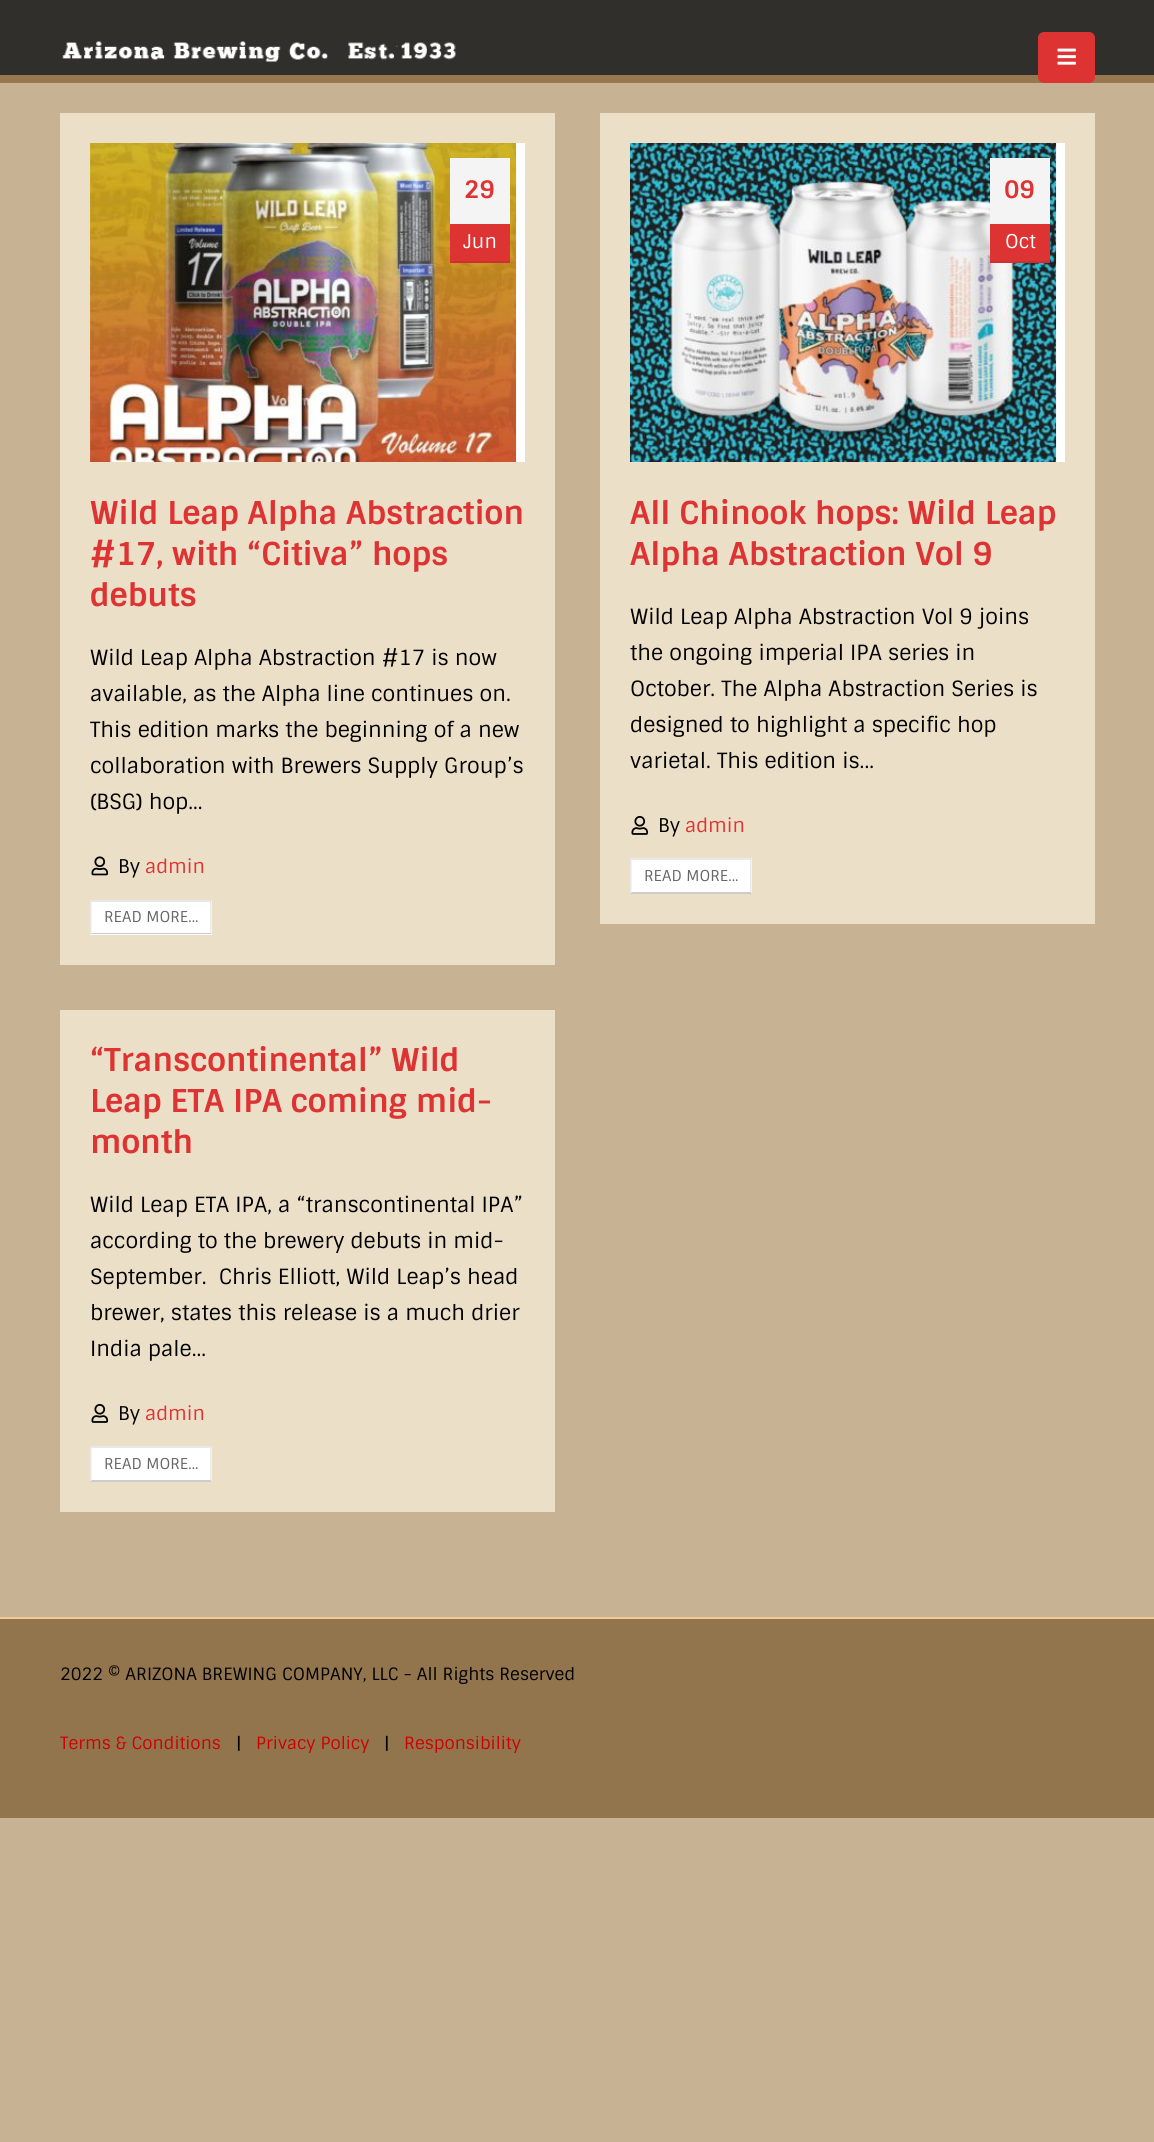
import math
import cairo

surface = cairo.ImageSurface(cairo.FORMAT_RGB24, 1154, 2142)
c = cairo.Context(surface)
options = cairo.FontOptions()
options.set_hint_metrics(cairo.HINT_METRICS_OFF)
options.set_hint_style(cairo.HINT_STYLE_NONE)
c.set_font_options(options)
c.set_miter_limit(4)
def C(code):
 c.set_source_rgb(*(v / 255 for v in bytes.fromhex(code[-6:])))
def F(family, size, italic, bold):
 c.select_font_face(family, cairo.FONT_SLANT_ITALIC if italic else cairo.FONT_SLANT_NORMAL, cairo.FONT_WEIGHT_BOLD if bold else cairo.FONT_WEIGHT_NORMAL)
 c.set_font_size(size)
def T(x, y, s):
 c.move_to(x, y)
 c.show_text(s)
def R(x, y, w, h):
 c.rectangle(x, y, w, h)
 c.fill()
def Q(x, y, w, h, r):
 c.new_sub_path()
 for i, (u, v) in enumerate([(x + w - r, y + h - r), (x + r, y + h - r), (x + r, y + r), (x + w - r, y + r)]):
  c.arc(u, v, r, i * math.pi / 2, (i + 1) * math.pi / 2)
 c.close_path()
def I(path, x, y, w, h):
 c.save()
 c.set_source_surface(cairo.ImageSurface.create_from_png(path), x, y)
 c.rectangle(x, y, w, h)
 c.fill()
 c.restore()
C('c7b394')
c.paint()
C('312f2c')
R(0,0,1154,75)
C('98794f')
R(0,75,1154,8)
I('1.png',62,41,394,21)
C('dd3333')
Q(1038,32,57,51,6)
c.fill()
I('2.png',1057,48,19,17)
C('ecdfc8')
R(60,113,495,852)
C('ffffff')
R(516,143,9,319)
I('3.png',90,143,427,319)
C('f4f4f4')
R(450,158,60,66)
F('Sintony',24,0,1)
C('dd3333')
T(464,198,'29')
R(450,224,60,37)
C('ce2f2f')
R(450,261,60,2)
F('Sintony',19,0,0)
C('ffffff')
T(463,248,'Jun')
F('Sintony',31.5,0,1)
C('dd3333')
T(90,524,'Wild Leap Alpha Abstraction')
T(90,565,'#17, with “Citiva” hops')
T(90,606,'debuts')
F('Sintony',21,0,0)
C('000000')
T(90,665,'Wild Leap Alpha Abstraction #17 is now')
T(90,701,'available, as the Alpha line continues on.')
T(90,737,'This edition marks the beginning of a new')
T(90,773,'collaboration with Brewers Supply Group’s')
T(90,809,'(BSG) hop...')
I('4.png',91,856,18,20)
F('Sintony',19,0,0)
T(118,873,'By')
C('dd3333')
T(145,873,'admin')
C('ffffff')
R(90,900,122,35)
C('e8e8e8')
c.new_path()
c.move_to(90,900)
c.line_to(212,900)
c.line_to(210,902)
c.line_to(92,902)
c.close_path()
c.fill()
c.set_source_rgba(0,0,0,0.09)
c.new_path()
c.move_to(211.5,900)
c.line_to(211.5,934.5)
c.line_to(210,933)
c.line_to(210,901.5)
c.close_path()
c.fill()
c.set_source_rgba(0,0,0,0.2)
c.new_path()
c.move_to(212,934)
c.line_to(90,934)
c.line_to(92,933)
c.line_to(210,933)
c.close_path()
c.fill()
c.set_source_rgba(0,0,0,0.09)
c.new_path()
c.move_to(90,934.5)
c.line_to(90,900)
c.line_to(91.5,901.5)
c.line_to(91.5,933)
c.close_path()
c.fill()
F('Sintony',15,0,0)
C('666666')
T(104,922,'READ MORE...')
C('ecdfc8')
R(600,113,495,811)
C('ffffff')
R(1056,143,9,319)
I('5.png',630,143,427,319)
C('f4f4f4')
R(990,158,60,66)
F('Sintony',24,0,1)
C('dd3333')
T(1004,198,'09')
R(990,224,60,37)
C('ce2f2f')
R(990,261,60,2)
F('Sintony',19,0,0)
C('ffffff')
T(1005,248,'Oct')
F('Sintony',31.5,0,1)
C('dd3333')
T(630,524,'All Chinook hops: Wild Leap')
T(630,565,'Alpha Abstraction Vol 9')
F('Sintony',21,0,0)
C('000000')
T(630,624,'Wild Leap Alpha Abstraction Vol 9 joins')
T(630,660,'the ongoing imperial IPA series in')
T(630,696,'October. The Alpha Abstraction Series is')
T(630,732,'designed to highlight a specific hop')
T(630,768,'varietal. This edition is...')
I('6.png',631,816,18,19)
F('Sintony',19,0,0)
T(658,832,'By')
C('dd3333')
T(685,832,'admin')
C('ffffff')
R(630,858,122,36)
C('e8e8e8')
c.new_path()
c.move_to(630,858)
c.line_to(752,858)
c.line_to(750,860)
c.line_to(632,860)
c.close_path()
c.fill()
c.set_source_rgba(0,0,0,0.09)
c.new_path()
c.move_to(751.5,858)
c.line_to(751.5,894)
c.line_to(750,892.5)
c.line_to(750,859.5)
c.close_path()
c.fill()
c.set_source_rgba(0,0,0,0.2)
c.new_path()
c.move_to(752,894)
c.line_to(630,894)
c.line_to(632,892)
c.line_to(750,892)
c.close_path()
c.fill()
c.set_source_rgba(0,0,0,0.09)
c.new_path()
c.move_to(630,894)
c.line_to(630,858)
c.line_to(631.5,859.5)
c.line_to(631.5,892.5)
c.close_path()
c.fill()
F('Sintony',15,0,0)
C('666666')
T(644,881,'READ MORE...')
C('ecdfc8')
R(60,1010,495,502)
F('Sintony',31.5,0,1)
C('dd3333')
T(90,1071,'“Transcontinental” Wild')
T(90,1112,'Leap ETA IPA coming mid-')
T(90,1153,'month')
F('Sintony',21,0,0)
C('000000')
T(90,1212,'Wild Leap ETA IPA, a “transcontinental IPA”')
T(90,1248,'according to the brewery debuts in mid-')
T(90,1284,'September.  Chris Elliott, Wild Leap’s head')
T(90,1320,'brewer, states this release is a much drier')
T(90,1356,'India pale...')
I('6.png',91,1404,18,19)
F('Sintony',19,0,0)
T(118,1420,'By')
C('dd3333')
T(145,1420,'admin')
C('ffffff')
R(90,1446,122,36)
C('e8e8e8')
c.new_path()
c.move_to(90,1446)
c.line_to(212,1446)
c.line_to(210,1448)
c.line_to(92,1448)
c.close_path()
c.fill()
c.set_source_rgba(0,0,0,0.09)
c.new_path()
c.move_to(211.5,1446)
c.line_to(211.5,1482)
c.line_to(210,1480.5)
c.line_to(210,1447.5)
c.close_path()
c.fill()
c.set_source_rgba(0,0,0,0.2)
c.new_path()
c.move_to(212,1482)
c.line_to(90,1482)
c.line_to(92,1480)
c.line_to(210,1480)
c.close_path()
c.fill()
c.set_source_rgba(0,0,0,0.09)
c.new_path()
c.move_to(90,1482)
c.line_to(90,1446)
c.line_to(91.5,1447.5)
c.line_to(91.5,1480.5)
c.close_path()
c.fill()
F('Sintony',15,0,0)
C('666666')
T(104,1469,'READ MORE...')
C('93754d')
R(0,1619,1154,199)
C('f1ca96')
R(0,1617,1154,2)
F('Sintony',17,0,0)
C('000000')
T(60,1680,'2022 © ARIZONA BREWING COMPANY, LLC - All Rights Reserved')
C('ce0000')
T(60,1749,'Terms & Conditions')
C('000000')
T(236,1749,'|')
C('ce0000')
T(256,1749,'Privacy Policy')
C('000000')
T(384,1749,'|')
C('ce0000')
T(404,1749,'Responsibility')
surface.write_to_png('o.png')
